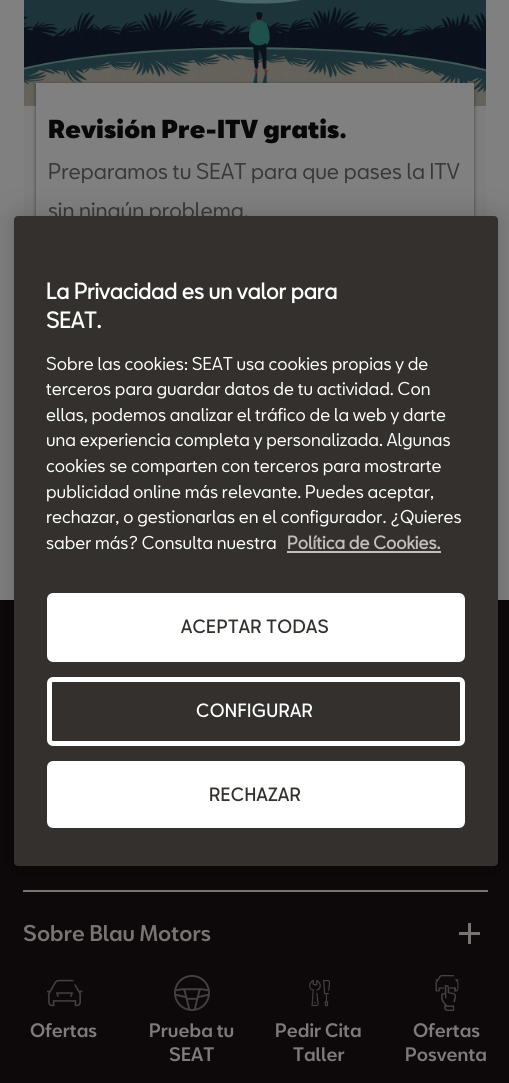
import math
import cairo

surface = cairo.ImageSurface(cairo.FORMAT_RGB24, 509, 1083)
c = cairo.Context(surface)
options = cairo.FontOptions()
options.set_hint_metrics(cairo.HINT_METRICS_OFF)
options.set_hint_style(cairo.HINT_STYLE_NONE)
c.set_font_options(options)
c.set_miter_limit(4)
def C(code):
 c.set_source_rgb(*(v / 255 for v in bytes.fromhex(code[-6:])))
def F(family, size, italic, bold):
 c.select_font_face(family, cairo.FONT_SLANT_ITALIC if italic else cairo.FONT_SLANT_NORMAL, cairo.FONT_WEIGHT_BOLD if bold else cairo.FONT_WEIGHT_NORMAL)
 c.set_font_size(size)
def T(x, y, s):
 c.move_to(x, y)
 c.show_text(s)
def L(x, y, s, letter, word):
 c.move_to(x, y)
 for ch in s:
  c.show_text(ch)
  c.rel_move_to(letter + word * (ch == ' '), 0)
def R(x, y, w, h):
 c.rectangle(x, y, w, h)
 c.fill()
def Q(x, y, w, h, r):
 c.new_sub_path()
 for i, (u, v) in enumerate([(x + w - r, y + h - r), (x + r, y + h - r), (x + r, y + r), (x + w - r, y + r)]):
  c.arc(u, v, r, i * math.pi / 2, (i + 1) * math.pi / 2)
 c.close_path()
def S(x, y, w, h, r, blur, alpha):
 c.push_group_with_content(cairo.CONTENT_ALPHA)
 c.set_operator(cairo.OPERATOR_SOURCE)
 for i in range(15, -16, -2):
  e = blur * i / 6
  if min(w, h) + 2 * e > 0:
   c.set_source_rgba(0, 0, 0, alpha * math.erfc((i - 1) / 8.5) / 2)
   Q(x - e, y - e, w + 2 * e, h + 2 * e, max(0, min(r + e + blur * .6, min(w, h) / 2 + e)))
   c.fill()
 c.mask(c.pop_group())
def I(path, x, y, w, h):
 c.save()
 c.set_source_surface(cairo.ImageSurface.create_from_png(path), x, y)
 c.rectangle(x, y, w, h)
 c.fill()
 c.restore()
C('808080')
c.paint()
C('7d7d7d')
R(24,106,462,110)
I('1.png',24,0,462,106)
C('1a1817')
S(36,84,438,302,0,2,.6)
C('808080')
R(36,83,438,133)
F('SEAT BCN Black',24,0,0)
C('080808')
T(48,138,'Revisión Pre-ITV gratis.')
F('SEAT BCN',21,0,0)
C('383838')
T(48,179,'Preparamos tu SEAT para que pases la ITV')
T(48,218,'sin ningún problema.')
C('0d080a')
R(0,600,509,483)
C('767571')
R(23,890,465,2)
C('000000')
S(14,216,484,650,4,13.5,.2)
C('33302e')
Q(14,216,484,650,4)
c.fill()
F('SEAT BCN',21,0,1)
C('ffffff')
T(46,299,'La Privacidad es un valor para')
T(46,328,'SEAT.')
F('SEAT BCN',17.1,0,0)
T(46,370,'Sobre las cookies: SEAT usa cookies propias y de')
T(46,395,'terceros para guardar datos de tu actividad. Con')
T(46,421,'ellas, podemos analizar el tráfico de la web y darte')
T(46,446,'una experiencia completa y personalizada. Algunas')
T(46,472,'cookies se comparten con terceros para mostrarte')
T(46,498,'publicidad online más relevante. Puedes aceptar,')
T(46,523,'rechazar, o gestionarlas en el configurador. ¿Quieres')
T(46,549,'saber más? Consulta nuestra')
F('SEAT BCN',17.1,0,1)
C('c0c0c0')
T(287,549,'Política de Cookies.')
R(287,551,154,2)
C('ffffff')
Q(49.5,595.5,413,64,3.5)
c.fill_preserve()
c.set_line_width(5)
c.stroke()
C('33302e')
L(181,633,'ACEPTAR TODAS',.8,0)
Q(49.5,679.5,413,64,3.5)
C('ffffff')
c.stroke()
L(196,717,'CONFIGURAR',.8,0)
Q(49.5,763.5,413,62,3.5)
c.fill_preserve()
c.stroke()
C('33302e')
L(209,801,'RECHAZAR',.8,0)
F('SEAT BCN Medium',21,0,0)
C('767571')
T(23,941,'Sobre Blau Motors')
R(459,932,21,3)
R(468,923,3,21)
I('2.png',47,979,36,28)
F('SEAT BCN Medium',18,0,0)
C('7d7c7b')
T(30,1037,'Ofertas')
I('3.png',174,975,36,36)
T(149,1037,'Prueba tu')
T(169,1061,'SEAT')
I('4.png',309,979,22,28)
T(275,1037,'Pedir Cita')
T(293,1061,'Taller')
I('5.png',435,975,24,36)
T(413,1037,'Ofertas')
T(405,1061,'Posventa')
surface.write_to_png('o.png')
